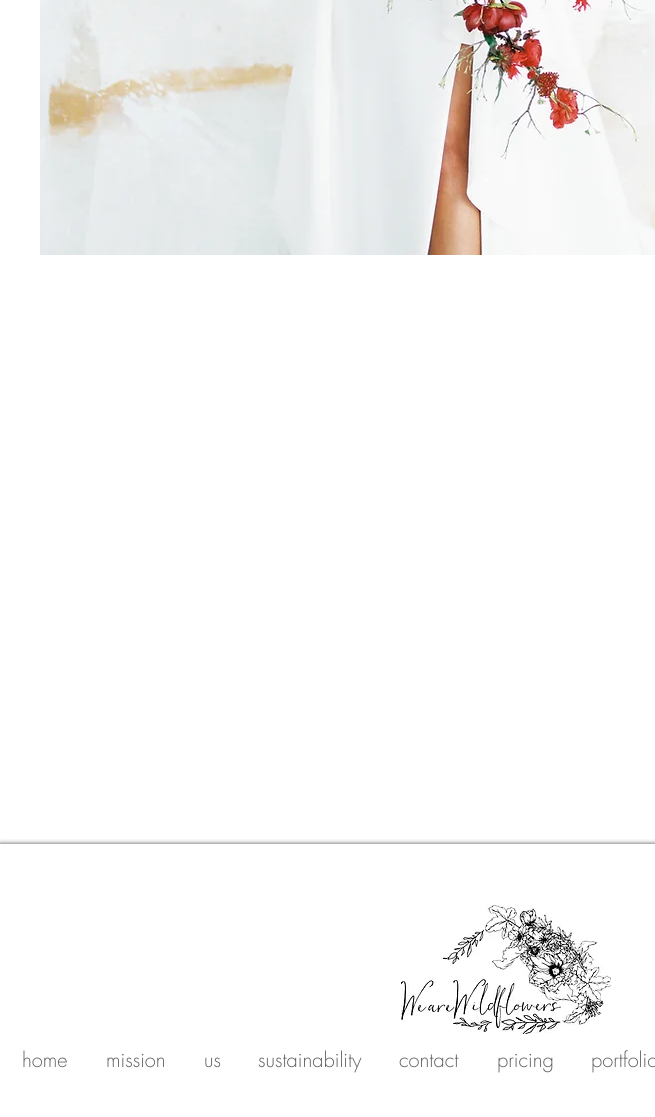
import math
import cairo

surface = cairo.ImageSurface(cairo.FORMAT_RGB24, 655, 1117)
c = cairo.Context(surface)
options = cairo.FontOptions()
options.set_hint_metrics(cairo.HINT_METRICS_OFF)
options.set_hint_style(cairo.HINT_STYLE_NONE)
c.set_font_options(options)
c.set_miter_limit(4)
def C(code):
 c.set_source_rgb(*(v / 255 for v in bytes.fromhex(code[-6:])))
def F(family, size, italic, bold):
 c.select_font_face(family, cairo.FONT_SLANT_ITALIC if italic else cairo.FONT_SLANT_NORMAL, cairo.FONT_WEIGHT_BOLD if bold else cairo.FONT_WEIGHT_NORMAL)
 c.set_font_size(size)
def T(x, y, s):
 c.move_to(x, y)
 c.show_text(s)
def Q(x, y, w, h, r):
 c.new_sub_path()
 for i, (u, v) in enumerate([(x + w - r, y + h - r), (x + r, y + h - r), (x + r, y + r), (x + w - r, y + r)]):
  c.arc(u, v, r, i * math.pi / 2, (i + 1) * math.pi / 2)
 c.close_path()
def S(x, y, w, h, r, blur, alpha):
 c.push_group_with_content(cairo.CONTENT_ALPHA)
 c.set_operator(cairo.OPERATOR_SOURCE)
 for i in range(15, -16, -2):
  e = blur * i / 6
  if min(w, h) + 2 * e > 0:
   c.set_source_rgba(0, 0, 0, alpha * math.erfc((i - 1) / 8.5) / 2)
   Q(x - e, y - e, w + 2 * e, h + 2 * e, max(0, min(r + e + blur * .6, min(w, h) / 2 + e)))
   c.fill()
 c.mask(c.pop_group())
def I(path, x, y, w, h):
 c.save()
 c.set_source_surface(cairo.ImageSurface.create_from_png(path), x, y)
 c.rectangle(x, y, w, h)
 c.fill()
 c.restore()
C('ffffff')
c.paint()
I('1.png',40,0,615,255)
c.save()
c.rectangle(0,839,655,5)
c.clip()
C('000000')
S(0,844,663,273,0,2.5,.7)
c.restore()
I('2.png',401,905,210,129)
F('futura Light',20,0,0)
C('606060')
T(22,1067,'home')
T(106,1067,'mission')
T(204,1067,'us')
T(258,1067,'sustainability')
T(399,1067,'contact')
T(497,1067,'pricing')
T(591,1067,'portfolio')
surface.write_to_png('o.png')
